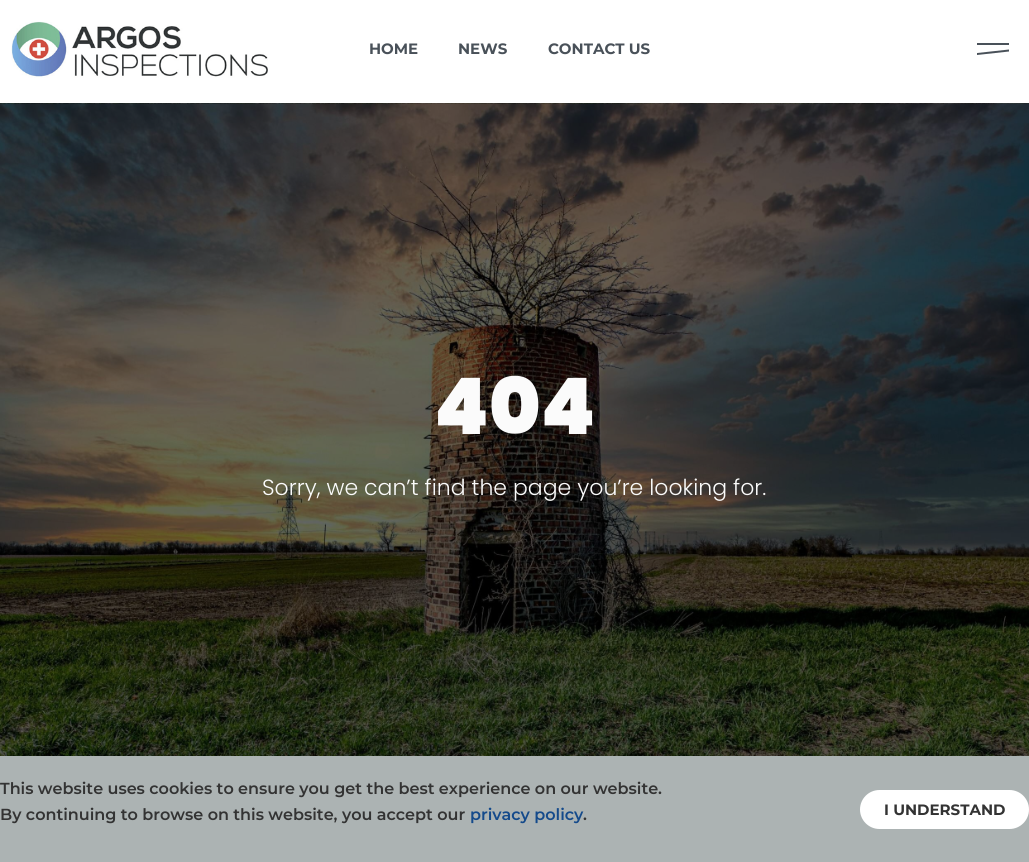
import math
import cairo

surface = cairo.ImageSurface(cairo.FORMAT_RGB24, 1029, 862)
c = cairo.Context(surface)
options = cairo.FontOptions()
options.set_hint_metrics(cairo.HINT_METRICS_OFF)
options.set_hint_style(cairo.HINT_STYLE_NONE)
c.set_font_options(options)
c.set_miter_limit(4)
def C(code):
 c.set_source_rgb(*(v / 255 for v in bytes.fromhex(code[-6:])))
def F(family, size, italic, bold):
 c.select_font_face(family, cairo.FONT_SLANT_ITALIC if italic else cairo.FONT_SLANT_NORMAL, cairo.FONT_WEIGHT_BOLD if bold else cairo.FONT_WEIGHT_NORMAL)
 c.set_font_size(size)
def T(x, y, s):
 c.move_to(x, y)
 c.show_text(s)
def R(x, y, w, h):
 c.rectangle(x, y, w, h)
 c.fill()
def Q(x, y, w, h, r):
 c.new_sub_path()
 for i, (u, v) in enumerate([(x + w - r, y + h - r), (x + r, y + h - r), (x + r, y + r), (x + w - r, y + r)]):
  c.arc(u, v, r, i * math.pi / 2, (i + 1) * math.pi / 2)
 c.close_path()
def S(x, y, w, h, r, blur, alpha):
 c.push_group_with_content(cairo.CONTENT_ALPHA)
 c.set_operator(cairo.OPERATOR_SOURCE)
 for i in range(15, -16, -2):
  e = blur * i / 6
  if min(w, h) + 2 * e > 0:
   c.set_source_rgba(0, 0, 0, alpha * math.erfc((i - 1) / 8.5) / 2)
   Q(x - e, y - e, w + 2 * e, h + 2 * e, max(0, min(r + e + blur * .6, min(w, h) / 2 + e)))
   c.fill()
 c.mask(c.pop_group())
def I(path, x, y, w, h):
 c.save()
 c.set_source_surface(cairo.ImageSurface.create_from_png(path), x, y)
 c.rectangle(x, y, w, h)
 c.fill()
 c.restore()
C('ffffff')
c.paint()
I('1.png',11,21,257,57)
F('Montserrat',15,0,1)
C('495159')
T(369,54,'HOME')
T(458,54,'NEWS')
T(548,54,'CONTACT US')
R(977,43,32,2)
c.new_path()
c.move_to(977,53)
c.line_to(1009,49.5)
c.line_to(1009,51.5)
c.line_to(977,55)
c.close_path()
c.fill()
I('2.png',0,103,1029,653)
F('Poppins Black',78,0,0)
C('fbfbfb')
T(434,434,'404')
F('Poppins Light',22,0,0)
T(262,495,'Sorry, we can’t find the page you’re looking for.')
C('000000')
S(-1,761,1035,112,0,11.5,.2)
C('acb3b3')
R(0,756,1029,106)
F('Montserrat SemiBold',16,0,0)
C('333333')
T(0,794,'This website uses cookies to ensure you get the best experience on our website.')
T(0,820,'By continuing to browse on this website, you accept our')
C('144a8b')
T(470,820,'privacy policy')
C('333333')
T(583,820,'.')
C('ffffff')
Q(860,790,169,39,19.5)
c.fill()
F('Montserrat',15,0,1)
C('333333')
T(884,815,'I UNDERSTAND')
surface.write_to_png('o.png')
